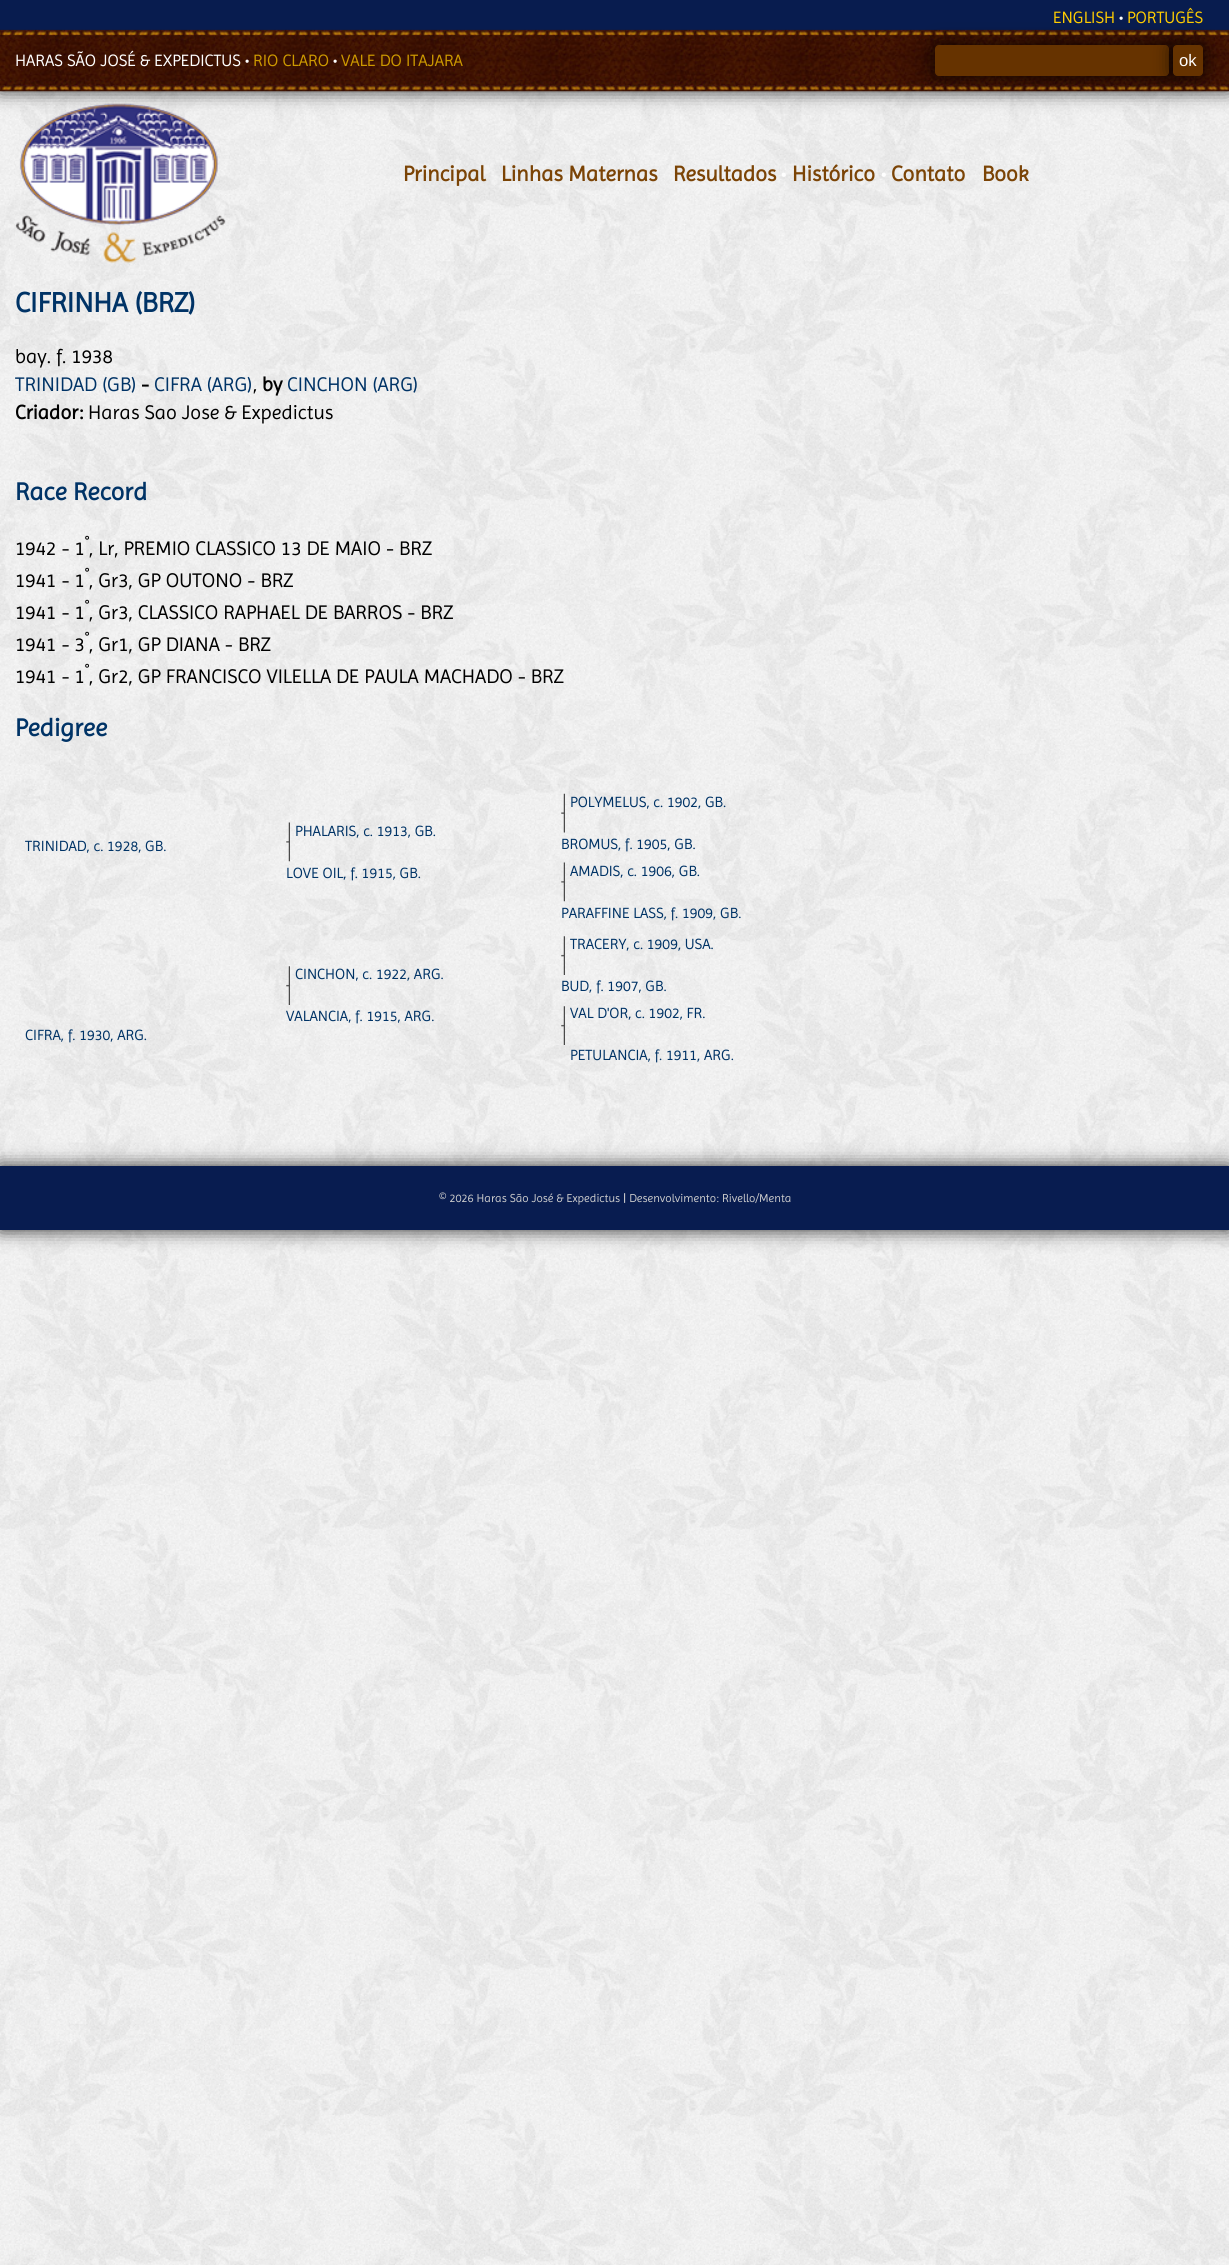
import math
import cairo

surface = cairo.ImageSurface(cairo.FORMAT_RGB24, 1229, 2265)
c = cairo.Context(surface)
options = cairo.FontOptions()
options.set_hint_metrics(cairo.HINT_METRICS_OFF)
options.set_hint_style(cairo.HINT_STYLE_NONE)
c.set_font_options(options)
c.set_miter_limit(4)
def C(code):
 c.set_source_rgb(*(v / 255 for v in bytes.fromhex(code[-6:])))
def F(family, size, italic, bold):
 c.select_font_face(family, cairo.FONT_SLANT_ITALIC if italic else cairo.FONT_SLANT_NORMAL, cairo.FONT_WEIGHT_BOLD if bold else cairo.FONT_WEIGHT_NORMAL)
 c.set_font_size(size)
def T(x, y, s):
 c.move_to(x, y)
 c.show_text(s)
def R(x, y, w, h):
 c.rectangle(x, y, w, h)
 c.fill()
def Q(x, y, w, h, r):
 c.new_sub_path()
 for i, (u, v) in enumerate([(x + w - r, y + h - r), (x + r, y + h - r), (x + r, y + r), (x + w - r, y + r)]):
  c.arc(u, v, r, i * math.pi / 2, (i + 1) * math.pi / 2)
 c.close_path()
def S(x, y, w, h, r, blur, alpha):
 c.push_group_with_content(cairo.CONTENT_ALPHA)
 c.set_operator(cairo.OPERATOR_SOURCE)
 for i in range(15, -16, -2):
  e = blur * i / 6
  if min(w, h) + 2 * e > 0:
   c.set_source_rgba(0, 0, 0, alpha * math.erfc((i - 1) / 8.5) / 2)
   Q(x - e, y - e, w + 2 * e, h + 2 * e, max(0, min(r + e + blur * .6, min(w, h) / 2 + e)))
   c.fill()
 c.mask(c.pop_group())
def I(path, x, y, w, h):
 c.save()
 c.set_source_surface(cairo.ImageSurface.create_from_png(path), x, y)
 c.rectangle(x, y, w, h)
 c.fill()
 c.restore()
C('ffffff')
c.paint()
I('1.png',0,91,1229,2174)
I('3.png',15,103,211,160)
C('000000')
S(0,0,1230,91,0,9.5,.8)
I('2.png',0,0,1229,92)
S(935,45,234,31,4,9.5,.8)
F('Imprima',16.7,0,0)
C('ffcc00')
T(1053,23,'ENGLISH')
C('ffffff')
T(1119,23,'•')
C('ffcc00')
T(1127,23,'PORTUGÊS')
C('ffffff')
T(15,66,'HARAS SÃO JOSÉ & EXPEDICTUS •')
C('cc9900')
T(253,66,'RIO CLARO')
C('ffffff')
T(333,66,'•')
C('cc9900')
T(341,66,'VALE DO ITAJARA')
C('663300')
Q(935.5,45.5,233,30,3.5)
c.fill_preserve()
c.set_line_width(1)
c.stroke()
C('000000')
S(1173,45,30,31,4,9.5,.8)
C('663300')
Q(1173.5,45.5,29,30,3.5)
c.fill_preserve()
c.stroke()
F('Liberation Sans',16.7,0,0)
C('ffffff')
T(1179,66,'ok')
F('Imprima',21.75,0,1)
C('7b4406')
T(403,181,'Principal')
T(501,181,'Linhas Maternas')
T(673,181,'Resultados')
F('Imprima',21.75,0,0)
C('ffffff')
T(781,181,'•')
F('Imprima',21.75,0,1)
C('7b4406')
T(792,181,'Histórico')
F('Imprima',21.75,0,0)
C('ffffff')
T(881,181,'•')
F('Imprima',21.75,0,1)
C('7b4406')
T(891,181,'Contato')
T(982,181,'Book')
F('Imprima',28.25,0,1)
C('003366')
T(15,312,'CIFRINHA (BRZ)')
F('Imprima',20,0,0)
C('000000')
T(15,363,'bay. f. 1938')
C('003366')
T(15,391,'TRINIDAD (GB)')
F('Imprima',20,0,1)
C('000000')
T(141,391,'-')
F('Imprima',20,0,0)
C('003366')
T(154,391,'CIFRA (ARG)')
F('Imprima',20,0,1)
C('000000')
T(262,391,'by')
F('Imprima',20,0,0)
C('003366')
T(287,391,'CINCHON (ARG)')
C('000000')
T(253,391,',')
F('Imprima',20,0,1)
T(15,419,'Criador:')
F('Imprima',20,0,0)
T(88,419,'Haras Sao Jose & Expedictus')
F('Imprima',25,0,1)
C('003366')
T(15,500,'Race Record')
F('Imprima',16.7,0,0)
C('000000')
T(85,547,'°')
F('Imprima',20,0,0)
T(15,555,'1942 - 1')
T(89,555,', Lr, PREMIO CLASSICO 13 DE MAIO - BRZ')
F('Imprima',16.7,0,0)
T(85,579,'°')
F('Imprima',20,0,0)
T(15,587,'1941 - 1')
T(89,587,', Gr3, GP OUTONO - BRZ')
F('Imprima',16.7,0,0)
T(85,611,'°')
F('Imprima',20,0,0)
T(15,619,'1941 - 1')
T(89,619,', Gr3, CLASSICO RAPHAEL DE BARROS - BRZ')
F('Imprima',16.7,0,0)
T(85,643,'°')
F('Imprima',20,0,0)
T(15,651,'1941 - 3')
T(89,651,', Gr1, GP DIANA - BRZ')
F('Imprima',16.7,0,0)
T(85,675,'°')
F('Imprima',20,0,0)
T(15,683,'1941 - 1')
T(89,683,', Gr2, GP FRANCISCO VILELLA DE PAULA MACHADO - BRZ')
F('Imprima',25,0,1)
C('003366')
T(15,736,'Pedigree')
F('Imprima',15,0,0)
T(25,851,'TRINIDAD, c. 1928, GB.')
T(25,1040,'CIFRA, f. 1930, ARG.')
I('4.png',286,822,4,40)
T(295,836,'PHALARIS, c. 1913, GB.')
T(286,878,'LOVE OIL, f. 1915, GB.')
I('5.png',286,966,4,39)
T(295,979,'CINCHON, c. 1922, ARG.')
T(286,1021,'VALANCIA, f. 1915, ARG.')
I('6.png',561,793,4,40)
T(570,807,'POLYMELUS, c. 1902, GB.')
T(561,849,'BROMUS, f. 1905, GB.')
I('7.png',561,862,4,40)
T(570,876,'AMADIS, c. 1906, GB.')
T(561,918,'PARAFFINE LASS, f. 1909, GB.')
I('8.png',561,936,4,39)
T(570,949,'TRACERY, c. 1909, USA.')
T(561,991,'BUD, f. 1907, GB.')
I('9.png',561,1006,4,39)
T(570,1018,'VAL D\'OR, c. 1902, FR.')
T(570,1060,'PETULANCIA, f. 1911, ARG.')
C('000000')
S(0,1166,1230,64,0,9.5,.8)
C('081c50')
R(0,1166,1229,64)
F('Imprima',11.7,0,0)
C('cccccc')
T(439,1202,'© 2026 Haras São José & Expedictus | Desenvolvimento: Rivello/Menta')
surface.write_to_png('o.png')
